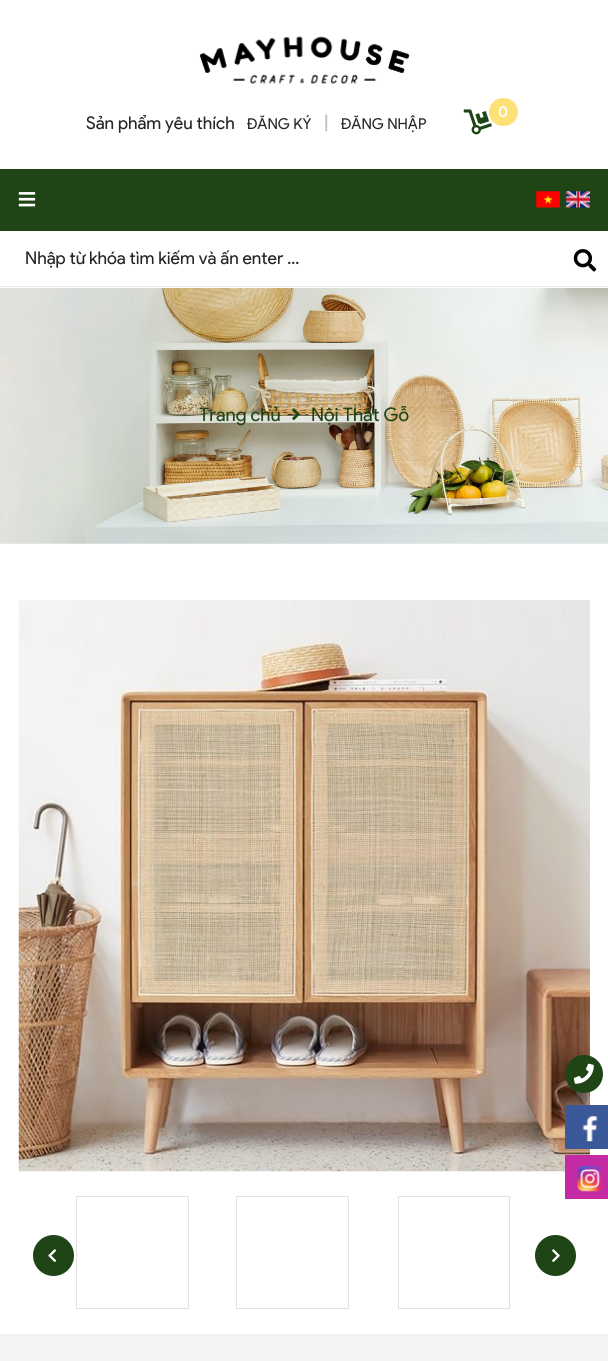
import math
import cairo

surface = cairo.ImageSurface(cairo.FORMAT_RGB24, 608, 1361)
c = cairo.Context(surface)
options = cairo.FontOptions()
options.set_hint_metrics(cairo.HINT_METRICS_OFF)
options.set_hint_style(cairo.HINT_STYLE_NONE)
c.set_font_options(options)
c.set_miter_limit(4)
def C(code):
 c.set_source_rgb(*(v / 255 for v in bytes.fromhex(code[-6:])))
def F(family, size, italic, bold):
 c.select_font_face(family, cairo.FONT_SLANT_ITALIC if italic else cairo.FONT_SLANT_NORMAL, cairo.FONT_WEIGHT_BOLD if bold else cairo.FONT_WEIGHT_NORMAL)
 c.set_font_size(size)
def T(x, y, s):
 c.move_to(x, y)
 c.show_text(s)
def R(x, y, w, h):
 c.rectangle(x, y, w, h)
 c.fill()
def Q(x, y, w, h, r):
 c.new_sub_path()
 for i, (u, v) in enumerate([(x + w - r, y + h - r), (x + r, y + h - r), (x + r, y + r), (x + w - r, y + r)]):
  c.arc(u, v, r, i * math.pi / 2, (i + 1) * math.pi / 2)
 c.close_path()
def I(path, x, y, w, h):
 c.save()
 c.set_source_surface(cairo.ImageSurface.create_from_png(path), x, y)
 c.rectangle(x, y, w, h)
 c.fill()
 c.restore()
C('ffffff')
c.paint()
I('1.png',199,36,211,48)
I('2.png',463,109,29,26)
C('fce176')
Q(489,98,29,28,14)
c.fill()
F('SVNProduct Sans',15,0,1)
C('ffffff')
T(498,117,'0')
F('SVNProduct Sans',17.5,0,0)
C('252525')
T(86,129,'Sản phẩm yêu thích')
F('SVNProduct Sans',15,0,0)
T(247,129,'ĐĂNG KÝ')
F('SVNProduct Sans',17.5,0,1)
C('c2c2c2')
T(324,129,'|')
F('SVNProduct Sans',15,0,0)
C('252525')
T(341,129,'ĐĂNG NHẬP')
C('1f4516')
R(0,169,608,62)
I('3.png',536,191,24,17)
I('4.png',566,191,24,17)
I('5.png',18,192,18,15)
C('ebebeb')
R(0,286,608,1)
F('SVNProduct Sans',17.5,0,0)
C('252525')
T(25,264,'Nhập từ khóa tìm kiếm và ấn enter ...')
I('6.png',573,249,24,23)
I('7.png',0,288,608,256)
F('SVNProduct Sans',18.75,0,0)
C('1f4516')
T(199,421,'Trang chủ')
I('8.png',292,408,8,12)
T(311,421,'Nội Thất Gỗ')
I('9.png',18,600,572,572)
c.rectangle(76.5,1196.5,112,112)
C('e1e1e1')
c.set_line_width(1)
c.stroke()
c.rectangle(236.5,1196.5,112,112)
c.stroke()
c.rectangle(398.5,1196.5,111,112)
c.stroke()
C('1f4516')
c.arc(53.5,1255.5,20.5,0,2 * math.pi)
c.fill()
I('10.png',48,1249,8,13)
c.arc(555.5,1255.5,20.5,0,2 * math.pi)
c.fill()
I('11.png',552,1249,8,13)
C('f3f3f3')
R(0,1334,608,27)
C('1f4516')
c.arc(584,1074,19,0,2 * math.pi)
c.fill()
I('12.png',573,1063,21,21)
C('3b5998')
R(565,1105,43,44)
I('13.png',582,1116,16,26)
C('c32aa3')
R(565,1155,43,44)
I('14.png',577,1166,26,26)
surface.write_to_png('o.png')
